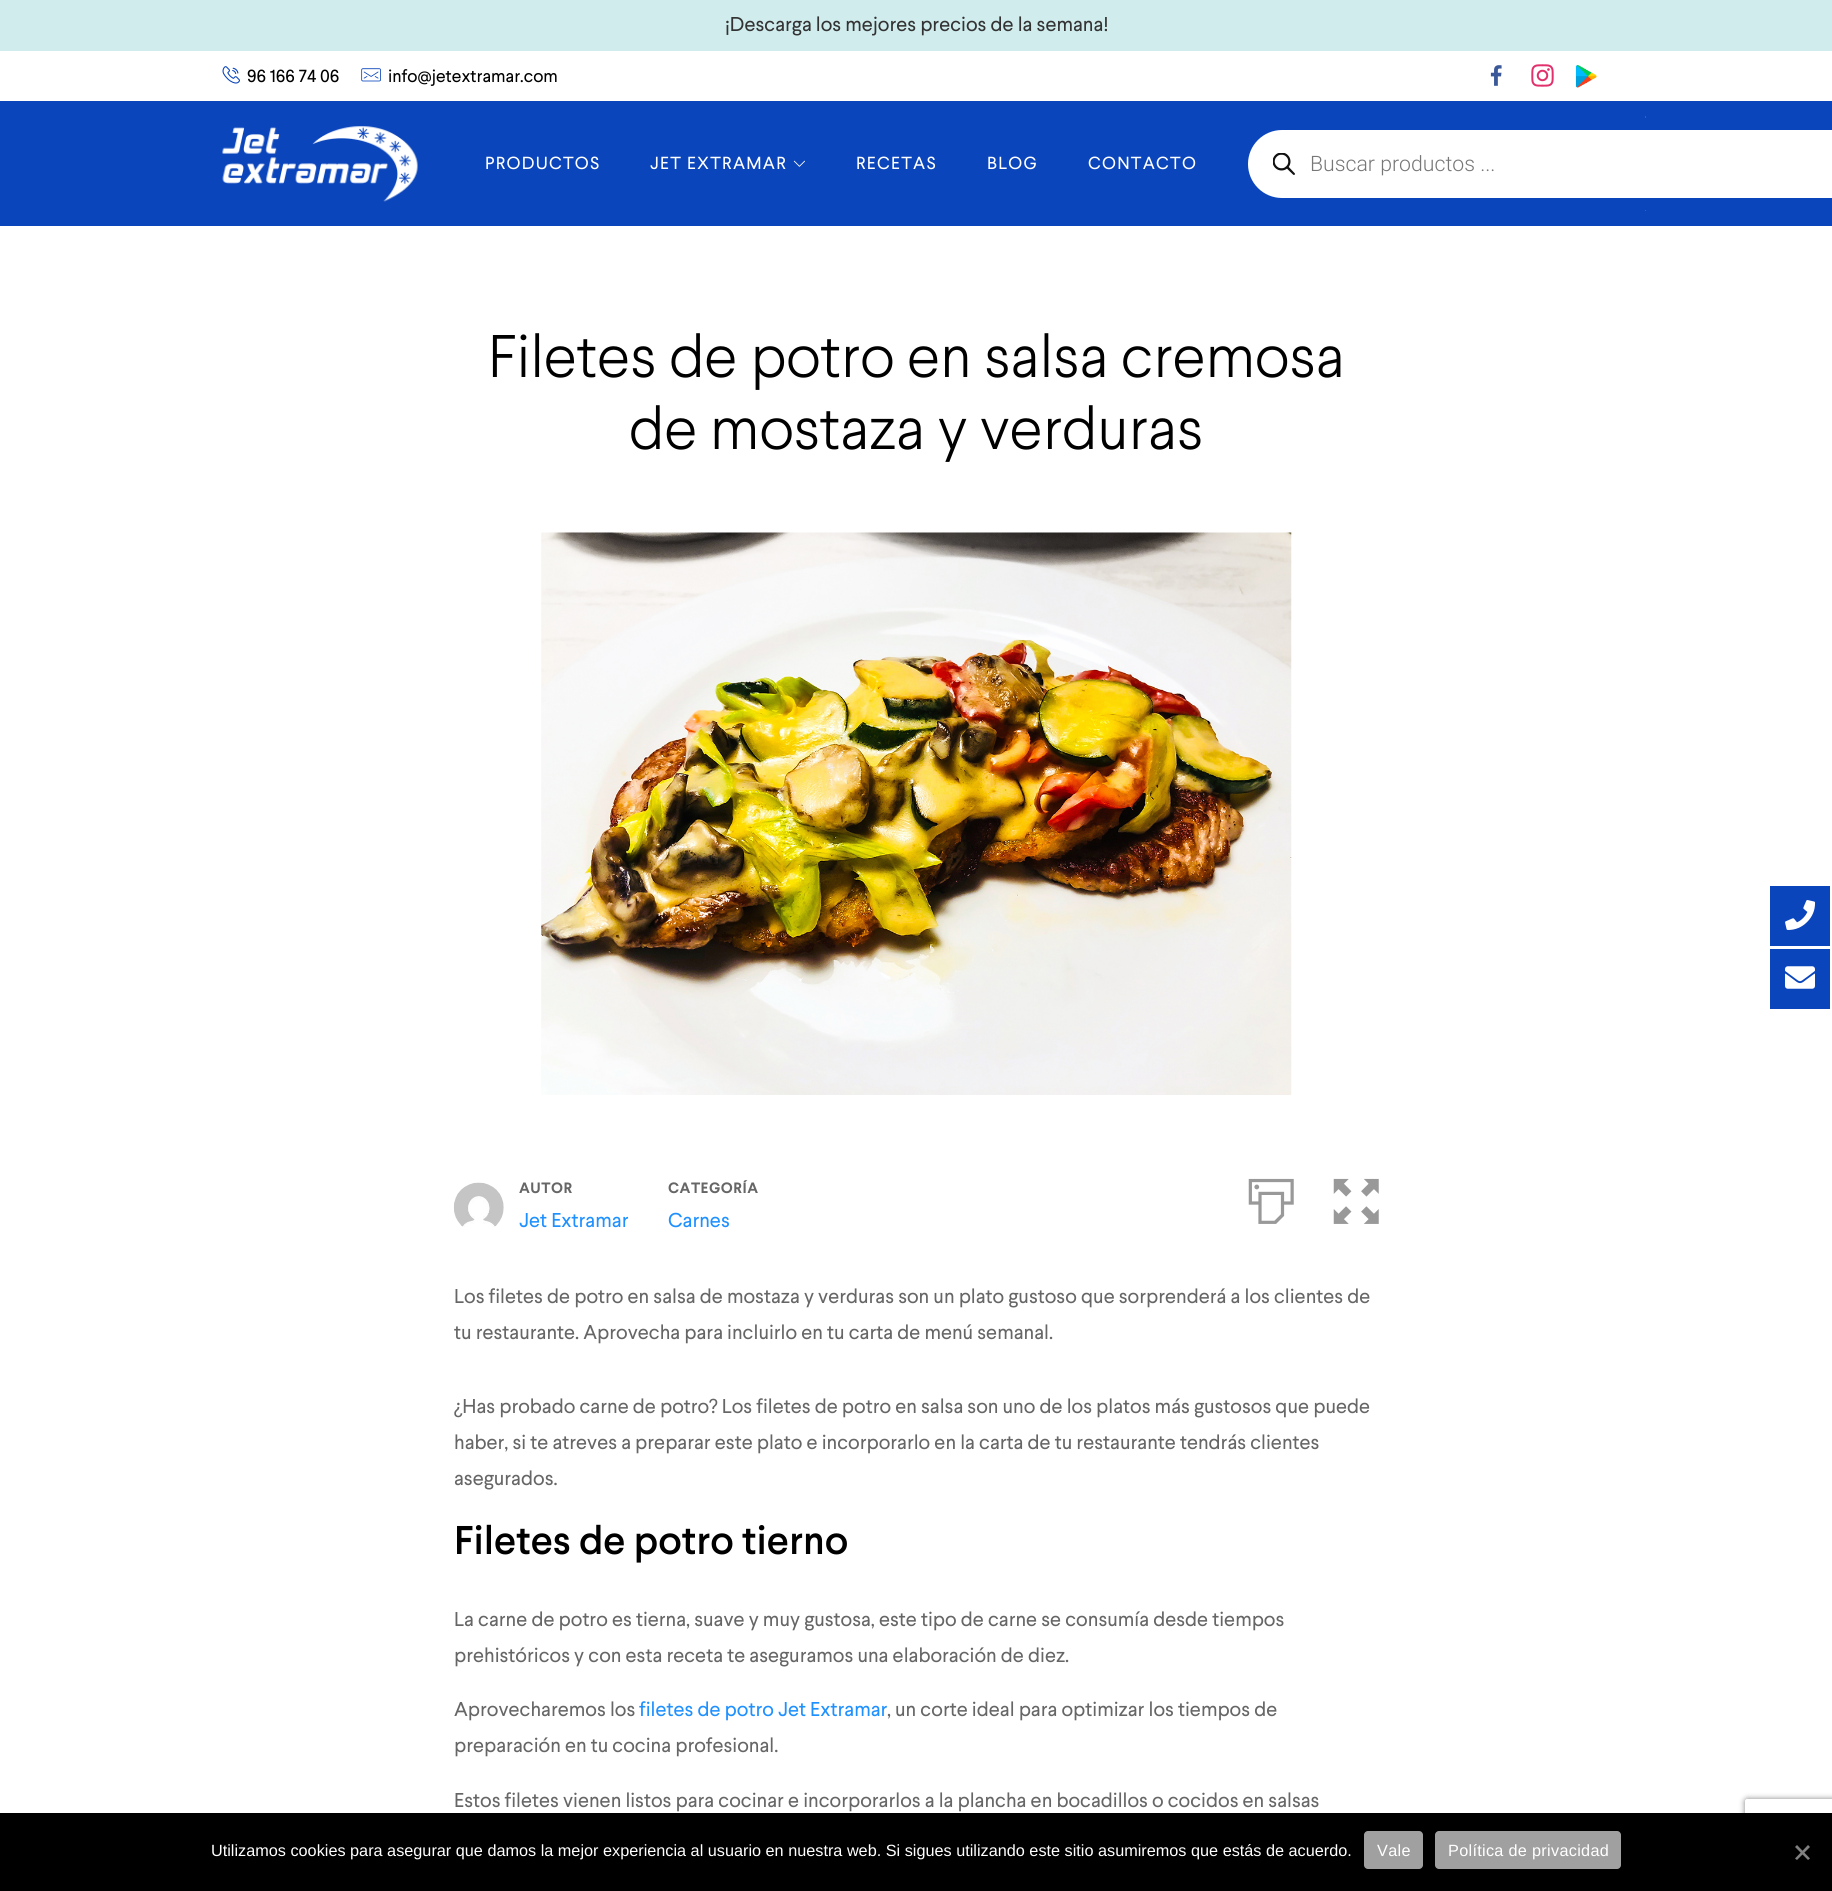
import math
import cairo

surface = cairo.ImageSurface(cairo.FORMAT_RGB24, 1832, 1891)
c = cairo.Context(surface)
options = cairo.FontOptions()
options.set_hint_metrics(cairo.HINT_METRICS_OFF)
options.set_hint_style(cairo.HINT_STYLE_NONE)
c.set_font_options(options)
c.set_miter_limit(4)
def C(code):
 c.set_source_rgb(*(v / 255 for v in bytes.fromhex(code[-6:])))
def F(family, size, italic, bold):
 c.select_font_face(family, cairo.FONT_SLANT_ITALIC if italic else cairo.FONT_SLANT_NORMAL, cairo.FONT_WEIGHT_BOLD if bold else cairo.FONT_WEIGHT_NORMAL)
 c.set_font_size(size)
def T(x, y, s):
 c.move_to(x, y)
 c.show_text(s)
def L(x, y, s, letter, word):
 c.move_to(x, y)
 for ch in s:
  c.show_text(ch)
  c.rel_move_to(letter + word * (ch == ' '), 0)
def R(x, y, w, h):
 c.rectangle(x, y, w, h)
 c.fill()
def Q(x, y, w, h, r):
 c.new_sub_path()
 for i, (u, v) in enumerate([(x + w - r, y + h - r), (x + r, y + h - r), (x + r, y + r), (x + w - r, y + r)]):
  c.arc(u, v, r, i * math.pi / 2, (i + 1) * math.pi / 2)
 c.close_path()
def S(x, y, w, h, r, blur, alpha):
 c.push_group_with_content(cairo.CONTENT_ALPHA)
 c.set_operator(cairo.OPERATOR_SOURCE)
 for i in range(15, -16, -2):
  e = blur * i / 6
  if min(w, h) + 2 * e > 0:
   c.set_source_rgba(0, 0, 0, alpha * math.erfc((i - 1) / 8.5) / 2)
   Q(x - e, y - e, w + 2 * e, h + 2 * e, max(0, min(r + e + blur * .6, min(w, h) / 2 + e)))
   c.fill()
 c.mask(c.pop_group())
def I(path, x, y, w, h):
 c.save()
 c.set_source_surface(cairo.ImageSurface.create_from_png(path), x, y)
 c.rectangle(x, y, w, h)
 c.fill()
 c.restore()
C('ffffff')
c.paint()
C('d0eced')
R(0,0,1832,51)
F('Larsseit',20,0,0)
C('333333')
T(725,31,'¡Descarga los mejores precios de la semana!')
I('1.png',222,66,18,18)
F('Larsseit',17.5,0,0)
C('000000')
T(247,82,'96 166 74 06')
I('2.png',361,68,20,14)
T(388,82,'info@jetextramar.com')
I('3.png',1490,65,12,21)
I('4.png',1531,64,23,23)
I('5.png',1575,65,22,23)
C('0b45bb')
R(0,101,1832,125)
I('6.png',222,126,196,76)
C('ffffff')
L(485,169,'PRODUCTOS',1.25,0)
L(650,169,'JET EXTRAMAR',1.25,0)
I('7.png',793,160,12,7)
L(856,169,'RECETAS',1.25,0)
L(987,169,'BLOG',1.25,0)
L(1088,169,'CONTACTO',1.25,0)
C('5d5d5d')
R(1645,116,1,95)
C('0b45bb')
Q(1235,118,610,92,13)
c.fill()
C('ffffff')
Q(1248,130,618,68,34)
c.fill()
I('8.png',1273,153,22,22)
F('Roboto Light',21.25,0,0)
C('777777')
T(1310,171,'Buscar productos ...')
F('Larsseit Light',60,0,0)
C('000000')
T(488,377,'Filetes de potro en salsa cremosa')
T(629,449,'de mostaza y verduras')
I('9.png',541,532,751,563)
I('10.png',453,1182,51,45)
F('Larsseit',15,0,1)
C('666666')
L(519,1193,'AUTOR',.5,0)
F('Larsseit',20,0,0)
C('1e90ff')
T(519,1227,'Jet Extramar')
F('Larsseit',15,0,1)
C('666666')
L(668,1193,'CATEGORÍA',.5,0)
F('Larsseit',20,0,0)
C('1e90ff')
T(668,1227,'Carnes')
I('11.png',1248,1178,46,46)
I('12.png',1333,1178,46,46)
C('666666')
T(454,1303,'Los filetes de potro en salsa de mostaza y verduras son un plato gustoso que sorprenderá a los clientes de')
T(454,1339,'tu restaurante. Aprovecha para incluirlo en tu carta de menú semanal.')
T(454,1413,'¿Has probado carne de potro? Los filetes de potro en salsa son uno de los platos más gustosos que puede')
T(454,1449,'haber, si te atreves a preparar este plato e incorporarlo en la carta de tu restaurante tendrás clientes')
T(454,1485,'asegurados.')
F('Larsseit Medium',40,0,0)
C('000000')
T(454,1554,'Filetes de potro tierno')
F('Larsseit',20,0,0)
C('666666')
T(454,1626,'La carne de potro es tierna, suave y muy gustosa, este tipo de carne se consumía desde tiempos')
T(454,1662,'prehistóricos y con esta receta te aseguramos una elaboración de diez.')
T(454,1716,'Aprovecharemos los')
C('1e90ff')
T(639,1716,'filetes de potro Jet Extramar')
C('666666')
T(887,1716,', un corte ideal para optimizar los tiempos de')
T(454,1752,'preparación en tu cocina profesional.')
T(454,1807,'Estos filetes vienen listos para cocinar e incorporarlos a la plancha en bocadillos o cocidos en salsas')
C('0b45bb')
R(1770,886,60,60)
I('13.png',1785,900,31,30)
R(1770,949,60,60)
I('14.png',1785,966,30,23)
c.save()
c.set_fill_rule(cairo.FILL_RULE_EVEN_ODD)
c.new_path()
c.move_to(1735,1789)
c.line_to(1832,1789)
c.line_to(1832,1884)
c.line_to(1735,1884)
c.close_path()
c.move_to(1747.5,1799)
c.line_to(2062.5,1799)
c.curve_to(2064,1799,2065,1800,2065,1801.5)
c.line_to(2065,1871.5)
c.curve_to(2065,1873,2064,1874,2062.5,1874)
c.line_to(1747.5,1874)
c.curve_to(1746,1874,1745,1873,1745,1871.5)
c.line_to(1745,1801.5)
c.curve_to(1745,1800,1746,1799,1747.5,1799)
c.close_path()
c.clip()
C('808080')
S(1745,1799,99,75,2.5,3,1)
c.restore()
C('000000')
R(0,1813,1832,78)
F('Liberation Sans',16.25,0,0)
C('ffffff')
T(211,1856,'Utilizamos cookies para asegurar que damos la mejor experiencia al usuario en nuestra web. Si sigues utilizando este sitio asumiremos que estás de acuerdo.')
C('a0a0a0')
Q(1364,1831,59,38,4)
c.fill()
C('ffffff')
L(1377,1856,'Vale',.3,0)
C('a0a0a0')
Q(1435,1831,186,38,4)
c.fill()
C('ffffff')
L(1448,1856,'Política de privacidad',.3,0)
C('808080')
c.new_path()
c.move_to(1808,1845)
c.line_to(1810,1847)
c.line_to(1797,1860)
c.line_to(1795,1858.5)
c.close_path()
c.fill()
c.new_path()
c.move_to(1795,1847)
c.line_to(1797,1845)
c.line_to(1810,1858.5)
c.line_to(1808,1860)
c.close_path()
c.fill()
surface.write_to_png('o.png')
